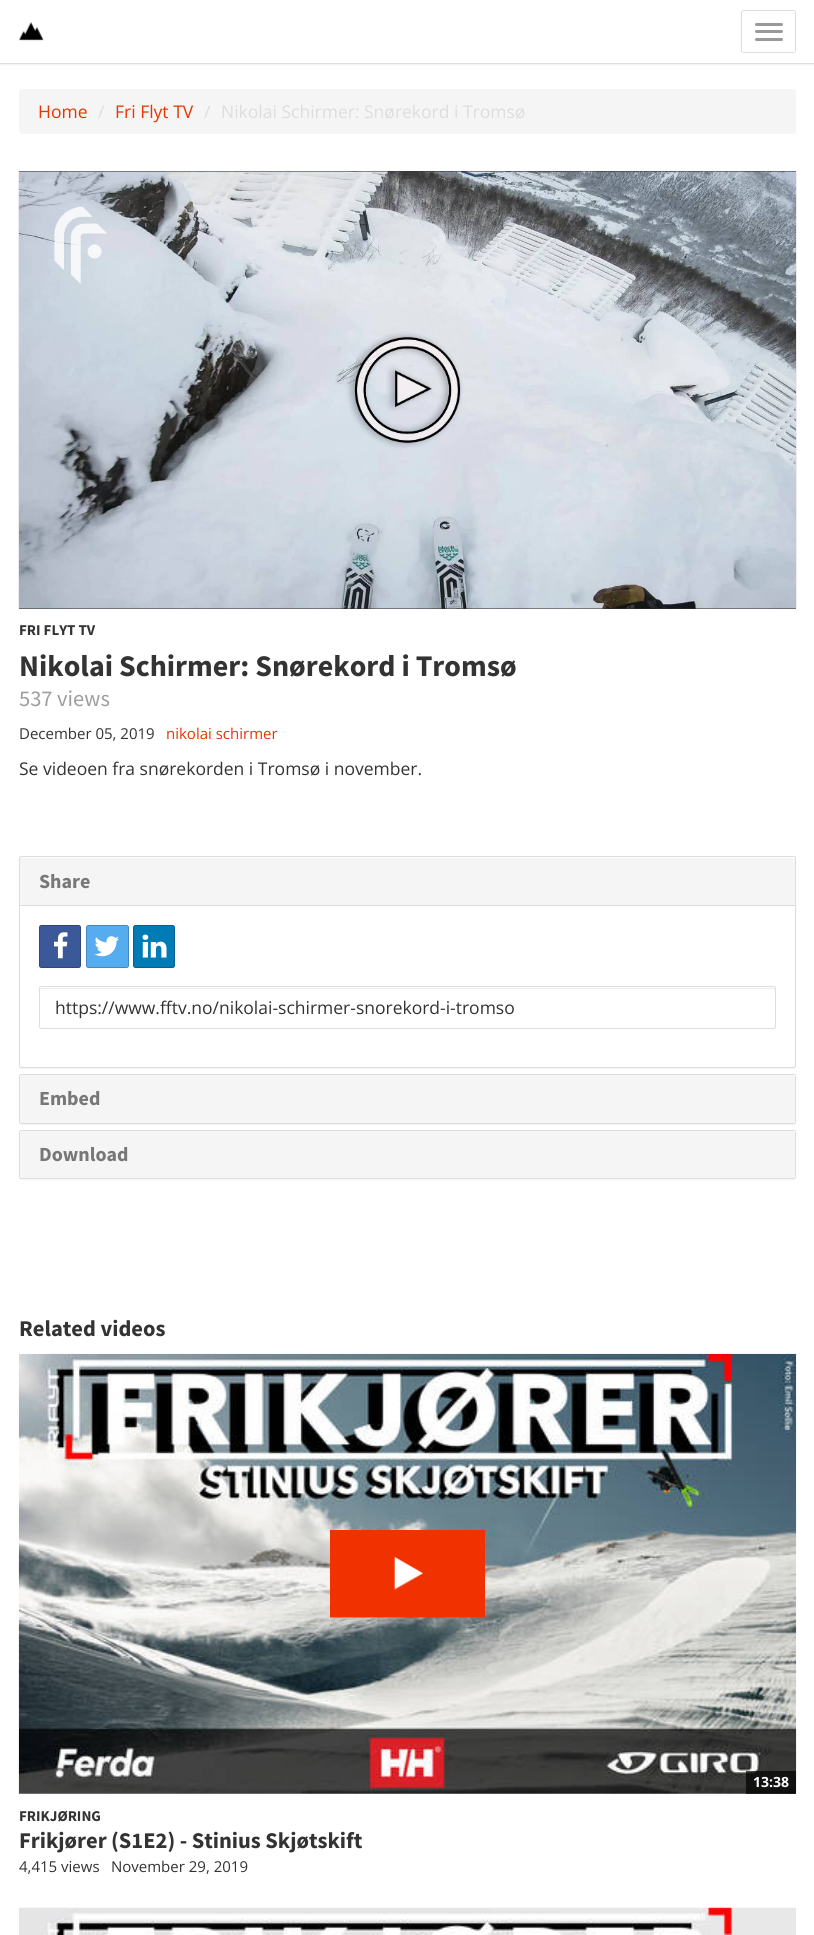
import math
import cairo

surface = cairo.ImageSurface(cairo.FORMAT_RGB24, 814, 1935)
c = cairo.Context(surface)
options = cairo.FontOptions()
options.set_hint_metrics(cairo.HINT_METRICS_OFF)
options.set_hint_style(cairo.HINT_STYLE_NONE)
c.set_font_options(options)
c.set_miter_limit(4)
def C(code):
 c.set_source_rgb(*(v / 255 for v in bytes.fromhex(code[-6:])))
def F(family, size, italic, bold):
 c.select_font_face(family, cairo.FONT_SLANT_ITALIC if italic else cairo.FONT_SLANT_NORMAL, cairo.FONT_WEIGHT_BOLD if bold else cairo.FONT_WEIGHT_NORMAL)
 c.set_font_size(size)
def T(x, y, s):
 c.move_to(x, y)
 c.show_text(s)
def R(x, y, w, h):
 c.rectangle(x, y, w, h)
 c.fill()
def Q(x, y, w, h, r):
 c.new_sub_path()
 for i, (u, v) in enumerate([(x + w - r, y + h - r), (x + r, y + h - r), (x + r, y + r), (x + w - r, y + r)]):
  c.arc(u, v, r, i * math.pi / 2, (i + 1) * math.pi / 2)
 c.close_path()
def S(x, y, w, h, r, blur, alpha):
 c.push_group_with_content(cairo.CONTENT_ALPHA)
 c.set_operator(cairo.OPERATOR_SOURCE)
 for i in range(15, -16, -2):
  e = blur * i / 6
  if min(w, h) + 2 * e > 0:
   c.set_source_rgba(0, 0, 0, alpha * math.erfc((i - 1) / 8.5) / 2)
   Q(x - e, y - e, w + 2 * e, h + 2 * e, max(0, min(r + e + blur * .6, min(w, h) / 2 + e)))
   c.fill()
 c.mask(c.pop_group())
def I(path, x, y, w, h):
 c.save()
 c.set_source_surface(cairo.ImageSurface.create_from_png(path), x, y)
 c.rectangle(x, y, w, h)
 c.fill()
 c.restore()
C('ffffff')
c.paint()
c.save()
c.rectangle(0,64,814,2)
c.clip()
C('dddddd')
S(0,0,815,64,0,1,1)
c.restore()
C('dddddd')
R(0,63,814,1)
I('1.png',18,22,26,19)
Q(741.5,10.5,54,42,2)
c.set_line_width(1)
c.stroke()
C('999999')
Q(755,23,28,3,1.5)
c.fill()
Q(755,30,28,3,1.5)
c.fill()
Q(755,38,28,3,1.5)
c.fill()
C('f5f5f5')
Q(19,89,777,45,2.5)
c.fill()
F('Open Sans',17.5,0,0)
C('e93400')
T(38,118,'Home')
C('dddddd')
T(98,118,'/')
C('e93400')
T(115,118,'Fri Flyt TV')
C('dddddd')
T(204,118,'/')
T(221,118,'Nikolai Schirmer: Snørekord i Tromsø')
I('2.png',18,171,779,438)
F('Source Sans Pro',15,0,1)
C('333333')
T(19,635,'FRI FLYT TV')
F('Source Sans Pro',30,0,1)
T(19,676,'Nikolai Schirmer: Snørekord i Tromsø')
F('Source Sans Pro',22.5,0,0)
C('9d9d9d')
T(19,706,'537 views')
F('Open Sans',15,0,0)
C('333333')
T(19,739,'December 05, 2019')
C('e93400')
T(166,739,'nikolai schirmer')
F('Open Sans',17.5,0,0)
C('333333')
T(19,775,'Se videoen fra snørekorden i Tromsø i november.')
C('000000')
S(19,858,777,211,2.5,.5,.05)
C('ffffff')
Q(19.5,856.5,776,211,2)
c.fill_preserve()
C('dddddd')
c.stroke()
C('f5f5f5')
c.new_path()
c.move_to(21,858)
c.line_to(794,858)
c.curve_to(794.5,858,795,858.5,795,859)
c.line_to(795,905)
c.line_to(20,905)
c.line_to(20,859)
c.curve_to(20,858.5,20.5,858,21,858)
c.close_path()
c.fill()
F('Source Sans Pro',20,0,1)
C('777777')
T(39,888,'Share')
C('dddddd')
R(20,905,775,1)
C('3b5998')
Q(39,925,42,43,2.5)
c.fill()
Q(39.5,925.5,41,42,2)
c.set_source_rgba(0,0,0,0.2)
c.stroke()
I('3.png',54,932,14,27)
C('55acee')
Q(86,925,43,43,2.5)
c.fill()
Q(86.5,925.5,42,42,2)
c.set_source_rgba(0,0,0,0.2)
c.stroke()
I('4.png',94,936,25,21)
C('007bb6')
Q(133,925,42,43,2.5)
c.fill()
Q(133.5,925.5,41,42,2)
c.set_source_rgba(0,0,0,0.2)
c.stroke()
I('5.png',142,934,25,24)
C('ececec')
c.new_path()
c.move_to(41,989)
c.line_to(774,989)
c.line_to(775,990)
c.curve_to(775,989,775,988,774,988)
c.line_to(41,988)
c.curve_to(40,988,40,989,40,990)
c.close_path()
c.fill()
Q(39.5,986.5,736,42,2)
C('dddddd')
c.stroke()
F('Open Sans',17.5,0,0)
C('333333')
T(55,1014,'https://www.fftv.no/nikolai-schirmer-snorekord-i-tromso')
C('000000')
S(19,1075,777,50,2.5,.5,.05)
Q(19.5,1074.5,776,49,2)
C('dddddd')
c.stroke()
C('f5f5f5')
c.new_path()
c.move_to(21,1075)
c.line_to(794,1075)
c.curve_to(794.5,1075,795,1075.5,795,1076)
c.line_to(795,1123)
c.line_to(20,1123)
c.line_to(20,1076)
c.curve_to(20,1075.5,20.5,1075,21,1075)
c.close_path()
c.fill()
F('Source Sans Pro',20,0,1)
C('777777')
T(39,1105,'Embed')
C('000000')
S(19,1131,777,49,2.5,.5,.05)
Q(19.5,1130.5,776,48,2)
C('dddddd')
c.stroke()
C('f5f5f5')
c.new_path()
c.move_to(21,1131)
c.line_to(794,1131)
c.curve_to(794.5,1131,795,1131.5,795,1132)
c.line_to(795,1178)
c.line_to(20,1178)
c.line_to(20,1132)
c.curve_to(20,1131.5,20.5,1131,21,1131)
c.close_path()
c.fill()
C('777777')
T(39,1161,'Download')
F('Source Sans Pro',22.5,0,1)
C('333333')
T(19,1336,'Related videos')
I('6.png',18,1353,779,441)
I('7.png',330,1530,155,88)
c.set_source_rgba(0,0,0,0.7)
R(746,1771,50,23)
F('Open Sans',14,0,1)
C('ffffff')
T(753,1787,'13:38')
F('Source Sans Pro',15,0,1)
C('333333')
T(19,1821,'FRIKJØRING')
F('Source Sans Pro',22.5,0,1)
T(19,1848,'Frikjører (S1E2) - Stinius Skjøtskift')
F('Open Sans',15,0,0)
T(19,1872,'4,415 views')
T(111,1872,'November 29, 2019')
I('8.png',19,1907,777,28)
surface.write_to_png('o.png')
